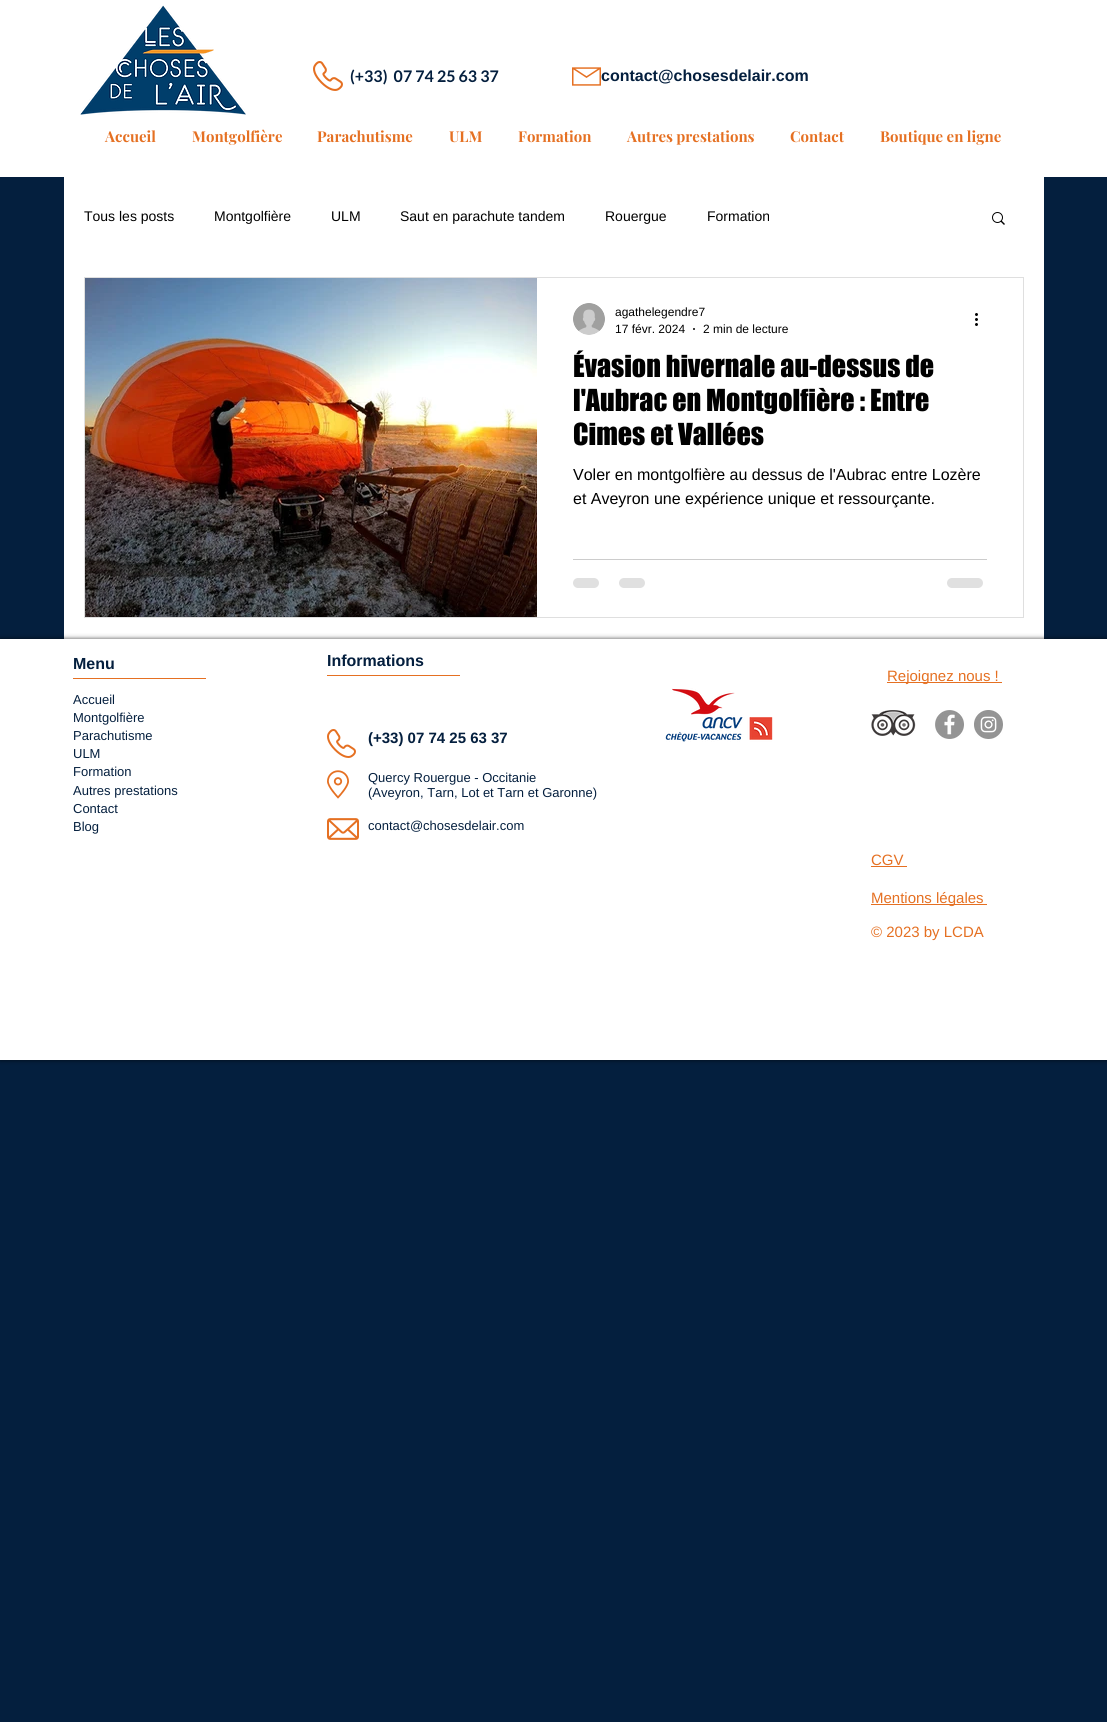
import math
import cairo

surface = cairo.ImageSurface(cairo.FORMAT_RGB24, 1107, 1722)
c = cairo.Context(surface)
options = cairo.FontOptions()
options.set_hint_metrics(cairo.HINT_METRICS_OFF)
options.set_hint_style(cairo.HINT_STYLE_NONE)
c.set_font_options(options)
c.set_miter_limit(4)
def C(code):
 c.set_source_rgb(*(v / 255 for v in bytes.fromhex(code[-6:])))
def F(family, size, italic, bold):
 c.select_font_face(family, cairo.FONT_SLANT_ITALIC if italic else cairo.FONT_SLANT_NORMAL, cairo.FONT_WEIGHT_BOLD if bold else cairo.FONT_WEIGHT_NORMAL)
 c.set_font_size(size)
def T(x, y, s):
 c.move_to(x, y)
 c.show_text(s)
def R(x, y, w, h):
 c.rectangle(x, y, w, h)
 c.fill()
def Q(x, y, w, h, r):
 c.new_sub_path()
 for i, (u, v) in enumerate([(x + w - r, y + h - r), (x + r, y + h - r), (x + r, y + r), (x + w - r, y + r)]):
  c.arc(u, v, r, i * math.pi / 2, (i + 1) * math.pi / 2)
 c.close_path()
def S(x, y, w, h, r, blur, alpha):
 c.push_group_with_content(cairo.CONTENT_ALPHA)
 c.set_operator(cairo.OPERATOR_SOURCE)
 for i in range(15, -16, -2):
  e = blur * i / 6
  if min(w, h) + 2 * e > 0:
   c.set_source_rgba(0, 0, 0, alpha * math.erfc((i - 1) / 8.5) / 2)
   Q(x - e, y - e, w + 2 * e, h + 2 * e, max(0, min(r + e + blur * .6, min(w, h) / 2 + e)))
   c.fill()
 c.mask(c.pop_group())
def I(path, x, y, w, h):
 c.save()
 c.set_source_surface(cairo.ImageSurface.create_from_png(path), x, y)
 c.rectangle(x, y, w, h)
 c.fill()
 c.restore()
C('041f3e')
c.paint()
C('ffffff')
R(0,0,1107,177)
I('1.png',80,5,166,110)
I('2.png',313,61,30,30)
F('Lato',16,0,1)
C('041f3e')
T(350,82,'(+33)  07 74 25 63 37')
I('3.png',572,67,29,19)
F('Liberation Sans',16,0,1)
T(601,81,'contact@chosesdelair.com')
F('Playfair Display',15,0,1)
C('e57022')
T(105,142,'Accueil')
T(192,142,'Montgolfière')
T(317,142,'Parachutisme')
T(449,142,'ULM')
T(518,142,'Formation')
T(627,142,'Autres prestations')
T(790,142,'Contact')
T(880,142,'Boutique en ligne')
C('ffffff')
R(64,177,980,462)
F('Liberation Sans',14,0,0)
C('000000')
T(84,221,'Tous les posts')
T(214,221,'Montgolfière')
T(331,221,'ULM')
T(400,221,'Saut en parachute tandem')
T(605,221,'Rouergue')
T(707,221,'Formation')
I('4.png',992,212,13,13)
c.rectangle(84.5,277.5,939,340)
C('dfdfdf')
c.set_line_width(1)
c.stroke()
I('5.png',85,278,452,339)
I('6.png',573,303,32,32)
F('Liberation Sans',12,0,0)
C('000000')
T(615,316,'agathelegendre7')
T(615,333,'17 févr. 2024')
c.new_path()
c.arc(694,329,1,0,2 * math.pi)
c.fill()
T(703,333,'2 min de lecture')
I('7.png',975,313,3,13)
F('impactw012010',28,0,0)
T(573,377,'Évasion hivernale au-dessus de')
T(573,411,'l\'Aubrac en Montgolfière : Entre')
T(573,445,'Cimes et Vallées')
F('Liberation Sans',16,0,0)
T(573,480,'Voler en montgolfière au dessus de l\'Aubrac entre Lozère')
T(573,504,'et Aveyron une expérience unique et ressourçante.')
C('cccccc')
R(573,559,414,1)
C('e0e0e0')
Q(573,578,26,10,5)
c.fill()
Q(619,578,26,10,5)
c.fill()
Q(947,578,36,10,5)
c.fill()
C('000000')
S(0,639,1107,421,0,2.5,.7)
C('ffffff')
R(0,639,1107,421)
F('Liberation Sans',16,0,1)
C('041f3e')
T(73,669,'Menu')
C('e57022')
R(73,678,133,1)
F('Liberation Sans',13,0,0)
C('041f3e')
T(73,704,'Accueil')
T(73,722,'Montgolfière')
T(73,740,'Parachutisme')
T(73,758,'ULM')
T(73,776,'Formation')
T(73,795,'Autres prestations')
T(73,813,'Contact')
T(73,831,'Blog')
F('Liberation Sans',16,0,1)
T(327,666,'Informations')
C('e57022')
R(327,675,133,1)
I('8.png',327,729,29,29)
F('Liberation Sans',15,0,1)
C('041f3e')
T(368,743,'(+33) 07 74 25 63 37')
I('9.png',327,818,32,22)
F('Liberation Sans',13,0,0)
T(368,830,'contact@chosesdelair.com')
C('e57022')
R(887,682,115,1)
F('Liberation Sans',15,0,0)
T(887,681,'Rejoignez nous !')
I('10.png',665,688,108,54)
I('11.png',871,710,45,26)
I('12.png',935,710,29,29)
I('13.png',974,710,29,29)
I('14.png',327,770,22,29)
F('Liberation Sans',13,0,0)
C('041f3e')
T(368,782,'Quercy Rouergue - Occitanie')
T(368,797,'(Aveyron, Tarn, Lot et Tarn et Garonne)')
F('Liberation Sans',15,0,0)
C('e57022')
T(871,865,'CGV')
R(871,866,36,1)
R(871,904,116,1)
T(871,903,'Mentions légales')
T(871,937,'© 2023 by LCDA')
surface.write_to_png('o.png')
